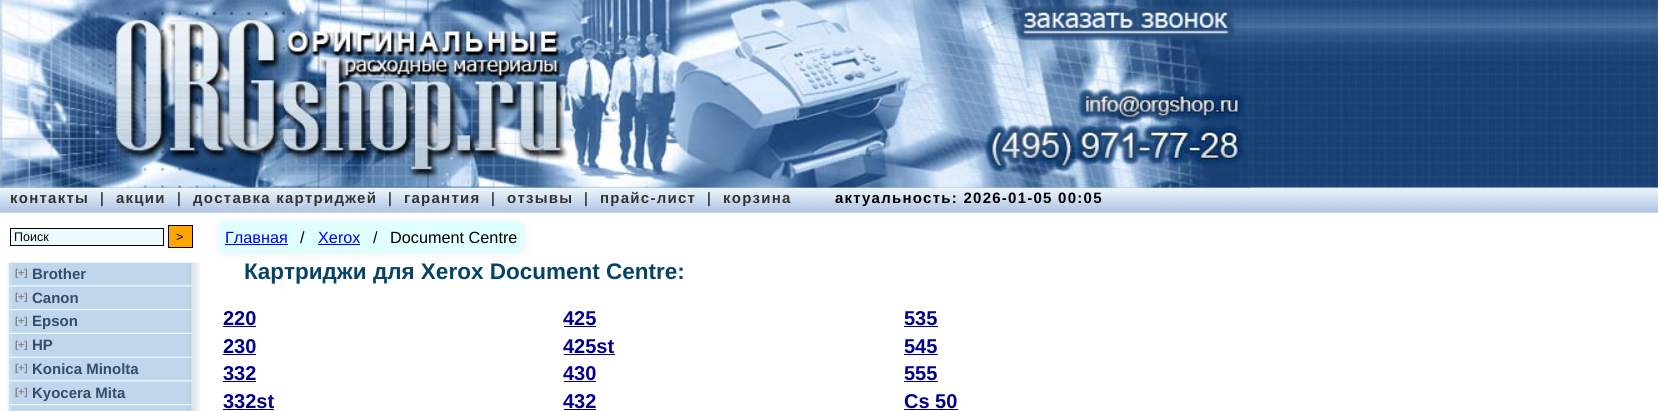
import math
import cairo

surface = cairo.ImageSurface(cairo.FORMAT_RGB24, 1658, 411)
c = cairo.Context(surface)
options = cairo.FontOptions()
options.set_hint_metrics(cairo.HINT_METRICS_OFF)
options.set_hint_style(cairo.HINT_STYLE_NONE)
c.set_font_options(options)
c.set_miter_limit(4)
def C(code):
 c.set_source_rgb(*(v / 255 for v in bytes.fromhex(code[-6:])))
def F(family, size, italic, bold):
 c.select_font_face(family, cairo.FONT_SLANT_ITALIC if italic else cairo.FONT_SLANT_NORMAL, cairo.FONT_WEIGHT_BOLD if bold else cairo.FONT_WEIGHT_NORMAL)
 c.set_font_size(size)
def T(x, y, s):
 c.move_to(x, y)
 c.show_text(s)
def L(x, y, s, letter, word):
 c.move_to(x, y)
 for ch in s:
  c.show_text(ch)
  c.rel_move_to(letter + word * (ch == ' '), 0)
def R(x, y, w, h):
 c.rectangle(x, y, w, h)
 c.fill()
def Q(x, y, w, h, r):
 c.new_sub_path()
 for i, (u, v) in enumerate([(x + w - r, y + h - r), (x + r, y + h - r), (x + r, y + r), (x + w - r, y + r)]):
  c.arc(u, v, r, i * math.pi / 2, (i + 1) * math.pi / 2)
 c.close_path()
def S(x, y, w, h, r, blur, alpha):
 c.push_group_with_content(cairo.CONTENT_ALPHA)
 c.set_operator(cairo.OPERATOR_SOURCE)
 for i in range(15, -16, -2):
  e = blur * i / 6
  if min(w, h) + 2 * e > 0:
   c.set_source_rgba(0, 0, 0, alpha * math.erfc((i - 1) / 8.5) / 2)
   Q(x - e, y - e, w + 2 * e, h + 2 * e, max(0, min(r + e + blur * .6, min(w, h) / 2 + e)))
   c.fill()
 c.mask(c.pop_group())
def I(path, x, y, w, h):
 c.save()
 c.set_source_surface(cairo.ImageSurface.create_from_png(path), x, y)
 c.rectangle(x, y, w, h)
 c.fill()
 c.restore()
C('ffffff')
c.paint()
I('1.png',0,0,1658,188)
I('2.png',0,0,1250,188)
I('3.png',1016,5,219,36)
I('4.png',0,187,1658,26)
F('Liberation Sans',15,0,1)
C('333333')
L(10,203,'контакты',1.25,0)
F('Liberation Sans',15,0,0)
C('000000')
L(100,203,'|',1.25,0)
F('Liberation Sans',15,0,1)
C('333333')
L(116,203,'акции',1.25,0)
F('Liberation Sans',15,0,0)
C('000000')
L(177,203,'|',1.25,0)
F('Liberation Sans',15,0,1)
C('333333')
L(193,203,'доставка картриджей',1.25,0)
F('Liberation Sans',15,0,0)
C('000000')
L(388,203,'|',1.25,0)
F('Liberation Sans',15,0,1)
C('333333')
L(404,203,'гарантия',1.25,0)
F('Liberation Sans',15,0,0)
C('000000')
L(491,203,'|',1.25,0)
F('Liberation Sans',15,0,1)
C('333333')
L(507,203,'отзывы',1.25,0)
F('Liberation Sans',15,0,0)
C('000000')
L(584,203,'|',1.25,0)
F('Liberation Sans',15,0,1)
C('333333')
L(600,203,'прайс-лист',1.25,0)
F('Liberation Sans',15,0,0)
C('000000')
L(707,203,'|',1.25,0)
F('Liberation Sans',15,0,1)
C('333333')
L(723,203,'корзина',1.25,0)
C('000000')
L(835,203,'актуальность: 2026-01-05 00:05',1.25,0)
C('edfbfe')
c.rectangle(10.5,228.5,153,17)
c.fill_preserve()
C('000000')
c.set_line_width(1)
c.stroke()
F('Liberation Sans',12.5,0,0)
T(14,241,'Поиск')
C('ffa500')
c.rectangle(168.5,225.5,24,22)
c.fill_preserve()
C('000000')
c.stroke()
T(176,241,'>')
I('5.png',6,262,194,149)
I('6.png',8,262,188,24)
F('Liberation Sans',10,0,1)
C('808080')
T(15,276,'[+]')
F('Liberation Sans',15,0,1)
C('314f6b')
T(32,279,'Brother')
I('7.png',8,286,184,23)
F('Liberation Sans',10,0,1)
C('808080')
T(15,300,'[+]')
F('Liberation Sans',15,0,1)
C('314f6b')
T(32,303,'Canon')
I('8.png',8,310,184,23)
F('Liberation Sans',10,0,1)
C('808080')
T(15,324,'[+]')
F('Liberation Sans',15,0,1)
C('314f6b')
T(32,326,'Epson')
I('9.png',8,334,184,23)
F('Liberation Sans',10,0,1)
C('808080')
T(15,348,'[+]')
F('Liberation Sans',15,0,1)
C('314f6b')
T(32,350,'HP')
I('10.png',8,357,184,24)
F('Liberation Sans',10,0,1)
C('808080')
T(15,371,'[+]')
F('Liberation Sans',15,0,1)
C('314f6b')
T(32,374,'Konica Minolta')
I('7.png',8,381,184,23)
F('Liberation Sans',10,0,1)
C('808080')
T(15,395,'[+]')
F('Liberation Sans',15,0,1)
C('314f6b')
T(32,398,'Kyocera Mita')
I('11.png',8,405,184,6)
C('d5dbe1')
S(220,224,303,29,5,5.5,.5)
C('e0ffff')
Q(219,221,305,32,6)
c.fill()
F('Liberation Sans',16.25,0,0)
C('0000ff')
T(225,243,'Главная')
R(225,244,63,1)
C('000000')
T(300,243,'/')
C('0000ff')
T(318,243,'Xerox')
R(318,244,42,1)
C('000000')
T(373,243,'/')
T(390,243,'Document Centre')
F('Liberation Sans',22.5,0,1)
C('064367')
T(244,279,'Картриджи для Xerox Document Centre:')
F('Liberation Sans',20,0,1)
C('00008b')
T(223,325,'220')
R(223,326,33,1)
T(563,325,'425')
R(564,326,32,1)
T(904,325,'535')
R(904,326,34,1)
T(223,353,'230')
R(223,354,33,1)
T(563,353,'425st')
R(564,354,51,1)
T(904,353,'545')
R(904,354,34,1)
T(223,380,'332')
R(223,381,33,1)
T(563,380,'430')
R(564,381,32,1)
T(904,380,'555')
R(904,381,34,1)
T(223,408,'332st')
R(223,409,51,1)
T(563,408,'432')
R(564,409,32,1)
T(904,408,'Cs 50')
R(904,409,54,1)
surface.write_to_png('o.png')
